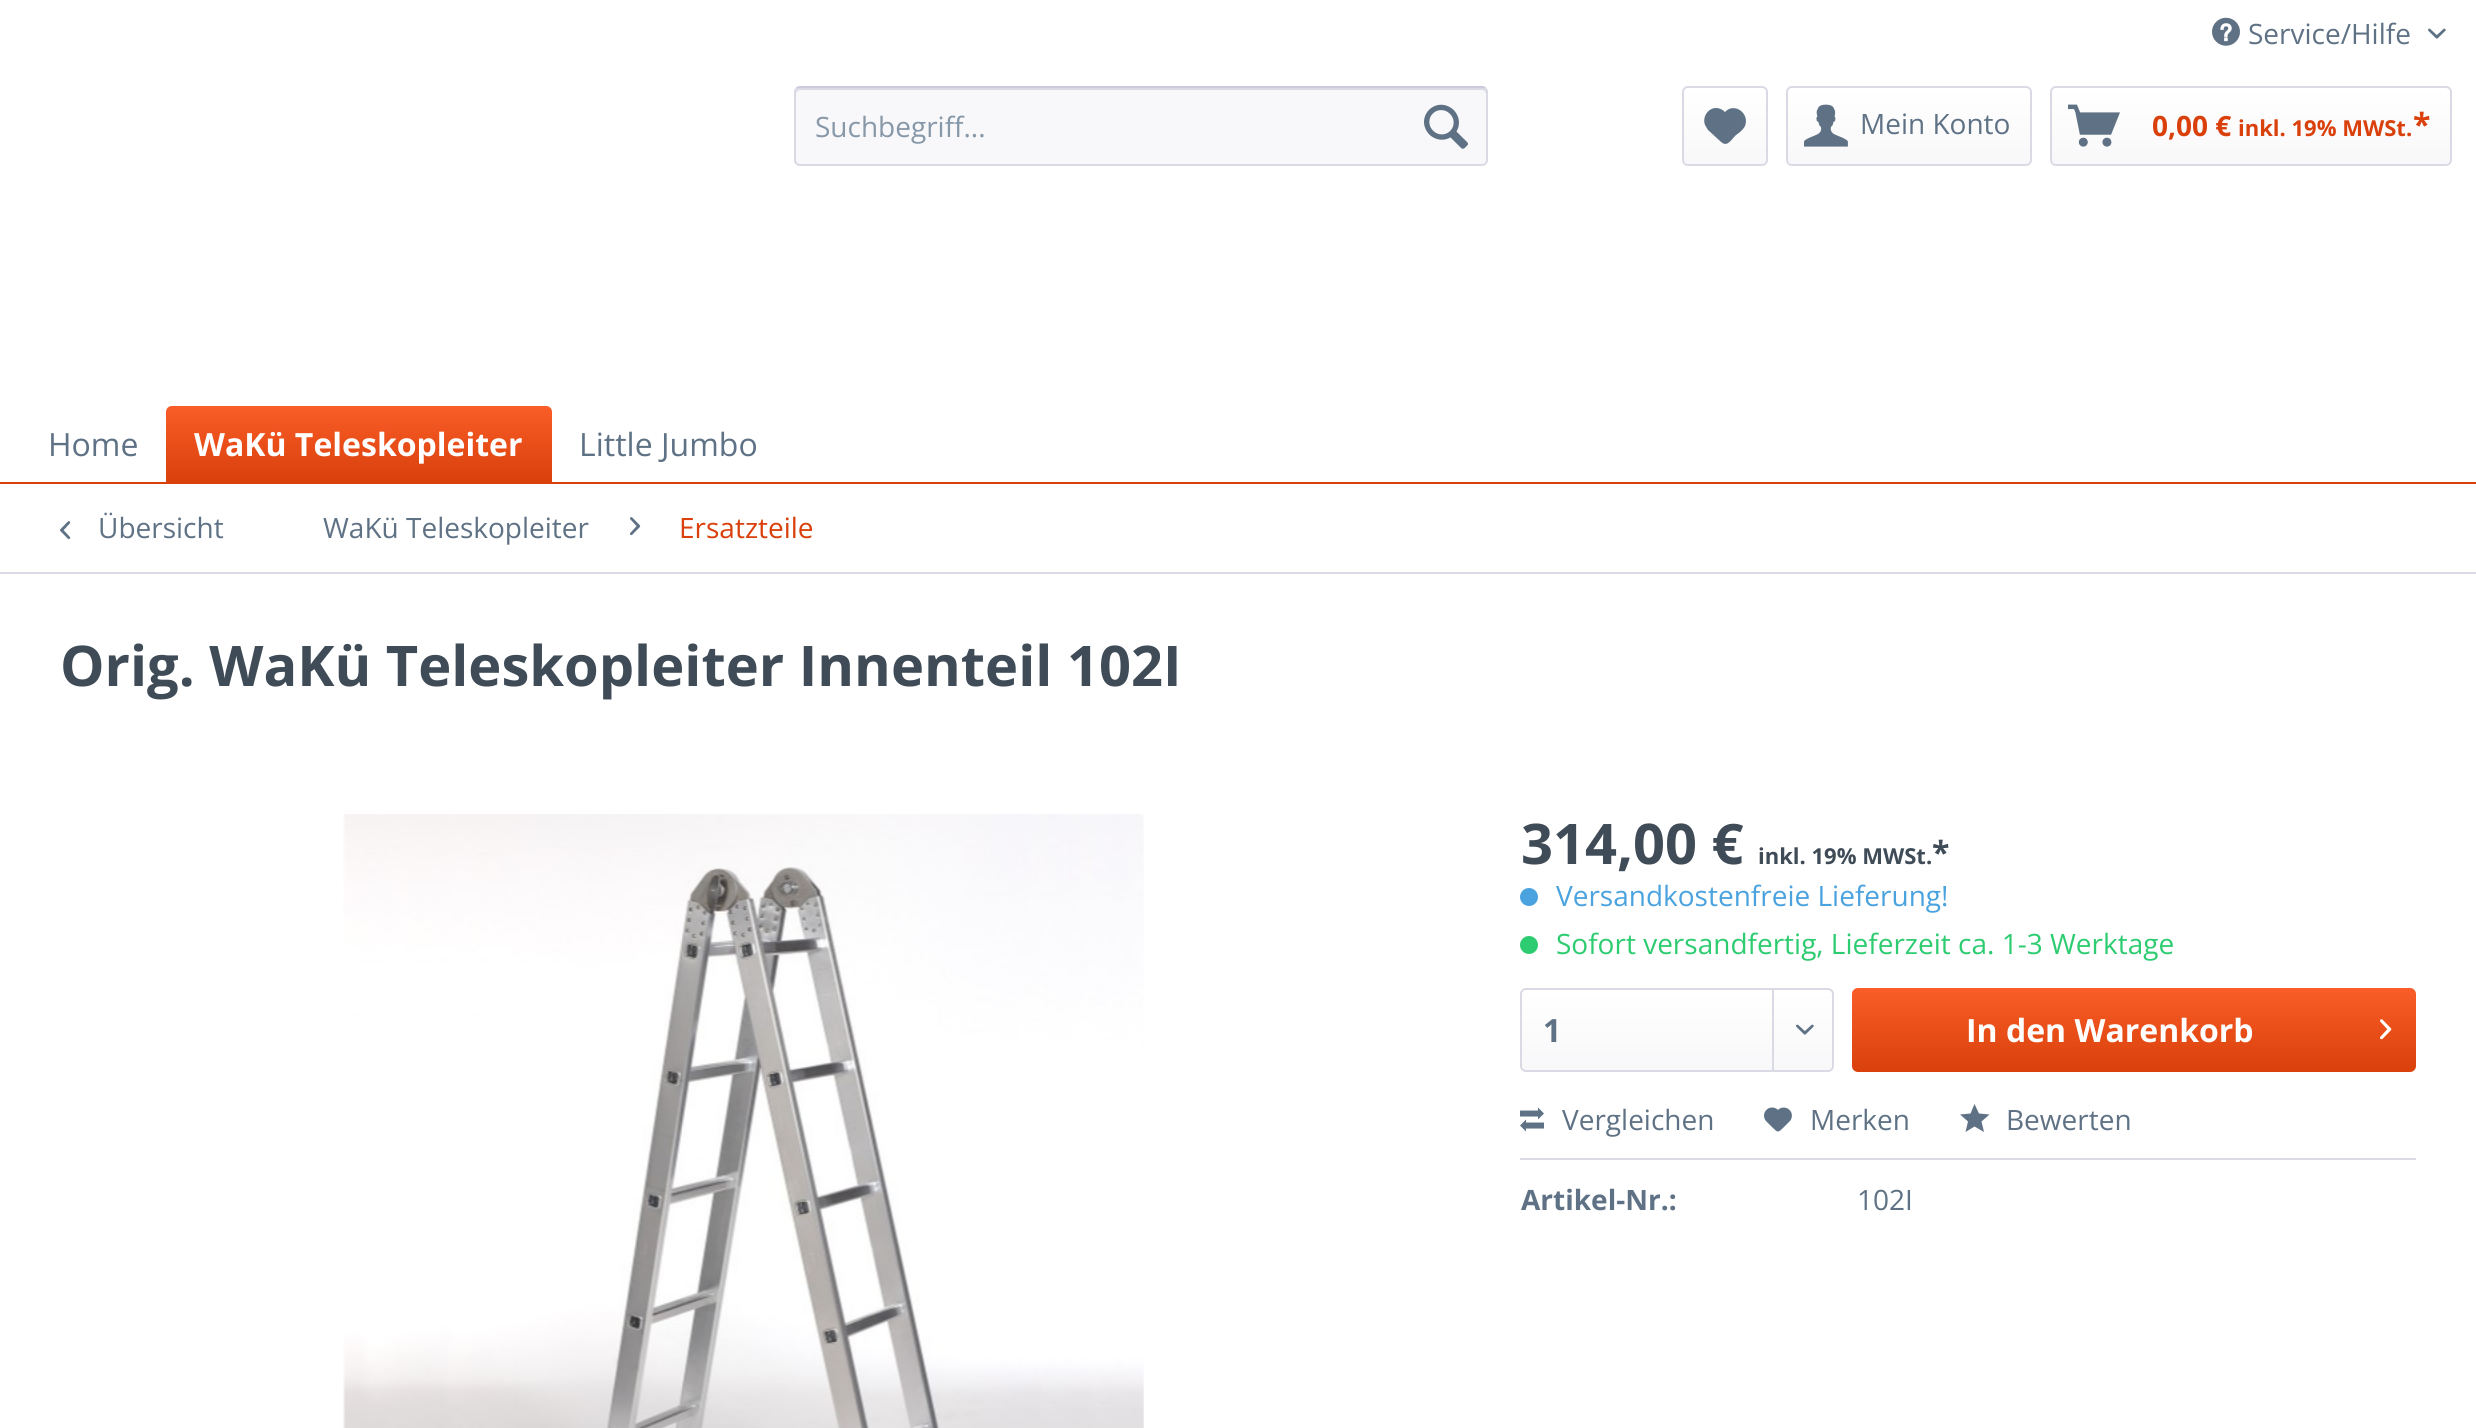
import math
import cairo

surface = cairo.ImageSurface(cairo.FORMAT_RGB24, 2476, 1428)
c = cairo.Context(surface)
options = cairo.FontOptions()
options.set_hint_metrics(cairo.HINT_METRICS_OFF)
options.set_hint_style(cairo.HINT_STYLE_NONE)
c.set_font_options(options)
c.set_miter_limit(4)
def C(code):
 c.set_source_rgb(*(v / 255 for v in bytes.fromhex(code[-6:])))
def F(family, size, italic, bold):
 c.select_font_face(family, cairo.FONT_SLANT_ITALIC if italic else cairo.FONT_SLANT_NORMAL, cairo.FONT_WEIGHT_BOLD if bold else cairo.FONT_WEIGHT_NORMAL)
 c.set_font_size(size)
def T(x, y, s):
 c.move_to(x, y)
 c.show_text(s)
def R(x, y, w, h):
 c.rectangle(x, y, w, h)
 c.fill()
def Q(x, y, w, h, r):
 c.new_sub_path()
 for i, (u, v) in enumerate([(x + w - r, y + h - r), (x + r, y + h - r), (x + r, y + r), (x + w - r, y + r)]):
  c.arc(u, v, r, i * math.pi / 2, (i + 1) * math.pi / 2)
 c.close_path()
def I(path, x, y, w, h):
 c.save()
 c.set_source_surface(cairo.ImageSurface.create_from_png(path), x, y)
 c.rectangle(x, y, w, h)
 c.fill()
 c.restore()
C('ffffff')
c.paint()
I('1.png',2212,17,28,29)
F('Open Sans',28,0,0)
C('5f7285')
T(2248,44,'Service/Hilfe')
I('2.png',2428,28,18,11)
C('f8f8fa')
Q(794,86,694,80,6)
c.fill()
C('dadae5')
c.new_path()
c.move_to(800,90)
c.line_to(1482,90)
c.curve_to(1484,90,1486,92,1486,94)
c.line_to(1486,92)
c.curve_to(1486,90,1484,88,1482,88)
c.line_to(800,88)
c.curve_to(798,88,796,90,796,92)
c.line_to(796,94)
c.curve_to(796,92,798,90,800,90)
c.close_path()
c.fill()
c.new_path()
c.move_to(796.5,88.5)
c.curve_to(797.5,87.5,798.5,87,800,87)
c.line_to(1482,87)
c.curve_to(1483.5,87,1484.5,87.5,1485.5,88.5)
C('cbcbdb')
c.stroke()
c.new_path()
c.move_to(1485.5,88.5)
c.curve_to(1486.5,89.5,1487,90.5,1487,92)
c.line_to(1487,160)
c.curve_to(1487,161.5,1486.5,162.5,1485.5,163.5)
c.curve_to(1484.5,164.5,1483.5,165,1482,165)
c.line_to(800,165)
c.curve_to(798.5,165,797.5,164.5,796.5,163.5)
c.curve_to(795.5,162.5,795,161.5,795,160)
c.line_to(795,92)
c.curve_to(795,90.5,795.5,89.5,796.5,88.5)
C('dadae5')
c.stroke()
C('8798a9')
T(815,137,'Suchbegriff...')
I('3.png',1424,104,44,45)
gradient = cairo.LinearGradient(1725,88,1725,164)
gradient.add_color_stop_rgba(0,1,1,1,1)
gradient.add_color_stop_rgba(1,0.973,0.973,0.98,1)
c.set_source(gradient)
Q(1684,88,82,76,4)
c.fill()
Q(1683,87,84,78,5)
C('dadae5')
c.stroke()
C('5f7285')
c.new_path()
c.move_to(1716,108)
c.curve_to(1708,108,1702,117,1705,125)
c.line_to(1708,130)
c.line_to(1720,141)
c.curve_to(1727,148,1730,141,1736,135)
c.curve_to(1739,133,1743,130,1745,126)
c.curve_to(1750,113,1734,102,1725,112)
c.curve_to(1723,110,1720,108,1716,108)
c.close_path()
c.fill()
gradient = cairo.LinearGradient(1909,88,1909,164)
gradient.add_color_stop_rgba(0,1,1,1,1)
gradient.add_color_stop_rgba(1,0.973,0.973,0.98,1)
c.set_source(gradient)
Q(1788,88,242,76,4)
c.fill()
Q(1787,87,244,78,5)
C('dadae5')
c.stroke()
I('4.png',1804,104,44,43)
C('5f7285')
T(1860,134,'Mein Konto')
gradient = cairo.LinearGradient(2251,88,2251,164)
gradient.add_color_stop_rgba(0,1,1,1,1)
gradient.add_color_stop_rgba(1,0.973,0.973,0.98,1)
c.set_source(gradient)
Q(2052,88,398,76,4)
c.fill()
Q(2051,87,400,78,5)
C('dadae5')
c.stroke()
I('5.png',2068,104,52,43)
F('Open Sans',28,0,1)
C('d9400b')
T(2152,136,'0,00 €')
F('Open Sans',22,0,1)
T(2238,136,'inkl. 19% MWSt.')
F('Open Sans',32,0,1)
T(2413,136,'*')
R(0,482,2476,2)
F('Open Sans',32,0,0)
C('5f7285')
T(48,456,'Home')
gradient = cairo.LinearGradient(359,406,359,482)
gradient.add_color_stop_rgba(0,0.98,0.365,0.153,1)
gradient.add_color_stop_rgba(1,0.851,0.251,0.043,1)
c.set_source(gradient)
c.new_path()
c.move_to(172,406)
c.line_to(546,406)
c.curve_to(549.5,406,552,408.5,552,412)
c.line_to(552,482)
c.line_to(166,482)
c.line_to(166,412)
c.curve_to(166,408.5,168.5,406,172,406)
c.close_path()
c.fill()
F('Open Sans',32,0,1)
C('ffffff')
T(194,456,'WaKü Teleskopleiter')
F('Open Sans',32,0,0)
C('5f7285')
T(579,456,'Little Jumbo')
C('dadae5')
R(0,572,2476,2)
I('6.png',60,521,11,19)
F('Open Sans',28,0,0)
C('5f7285')
T(98,538,'Übersicht')
T(323,538,'WaKü Teleskopleiter')
I('7.png',630,517,11,19)
C('d9400b')
T(679,538,'Ersatzteile')
F('Open Sans',56,0,1)
C('3f4c58')
T(60,686,'Orig. WaKü Teleskopleiter Innenteil 102I')
I('8.png',343,814,801,614)
T(1521,864,'314,00 €')
F('Open Sans',22,0,1)
T(1758,864,'inkl. 19% MWSt.')
F('Open Sans',32,0,1)
T(1932,864,'*')
C('4aa3df')
c.new_path()
c.arc(1529,897,9,0,2 * math.pi)
c.fill()
F('Open Sans',28,0,0)
T(1556,906,'Versandkostenfreie Lieferung!')
C('2ecc71')
c.new_path()
c.arc(1529,945,9,0,2 * math.pi)
c.fill()
T(1556,954,'Sofort versandfertig, Lieferzeit ca. 1-3 Werktage')
gradient = cairo.LinearGradient(1677,990,1677,1070)
gradient.add_color_stop_rgba(0,1,1,1,1)
gradient.add_color_stop_rgba(1,0.973,0.973,0.98,1)
c.set_source(gradient)
Q(1522,990,310,80,4)
c.fill()
Q(1521,989,312,82,5)
C('dadae5')
c.stroke()
F('Open Sans',32,0,1)
C('5f7285')
T(1543,1042,'1')
C('dadae5')
R(1772,990,2,80)
I('9.png',1796,1024,18,11)
gradient = cairo.LinearGradient(2134,988,2134,1072)
gradient.add_color_stop_rgba(0,0.98,0.365,0.153,1)
gradient.add_color_stop_rgba(1,0.851,0.251,0.043,1)
c.set_source(gradient)
Q(1852,988,564,84,6)
c.fill()
C('ffffff')
T(1966,1042,'In den Warenkorb')
I('10.png',2380,1019,12,21)
C('dadae5')
R(1520,1158,896,2)
I('11.png',1520,1107,24,25)
F('Open Sans',28,0,0)
C('5f7285')
T(1562,1130,'Vergleichen')
I('12.png',1764,1107,28,25)
T(1810,1130,'Merken')
T(2006,1130,'Bewerten')
c.new_path()
c.move_to(1974.5,1104)
c.line_to(1970.5,1113.5)
c.line_to(1960,1114.5)
c.line_to(1968,1121.5)
c.line_to(1965.5,1132)
c.line_to(1974.5,1126.5)
c.line_to(1984,1132)
c.line_to(1981.5,1121.5)
c.line_to(1989.5,1114.5)
c.line_to(1979,1113.5)
c.close_path()
c.fill()
F('Open Sans',28,0,1)
T(1521,1210,'Artikel-Nr.:')
F('Open Sans',28,0,0)
T(1857,1210,'102I')
surface.write_to_png('o.png')
